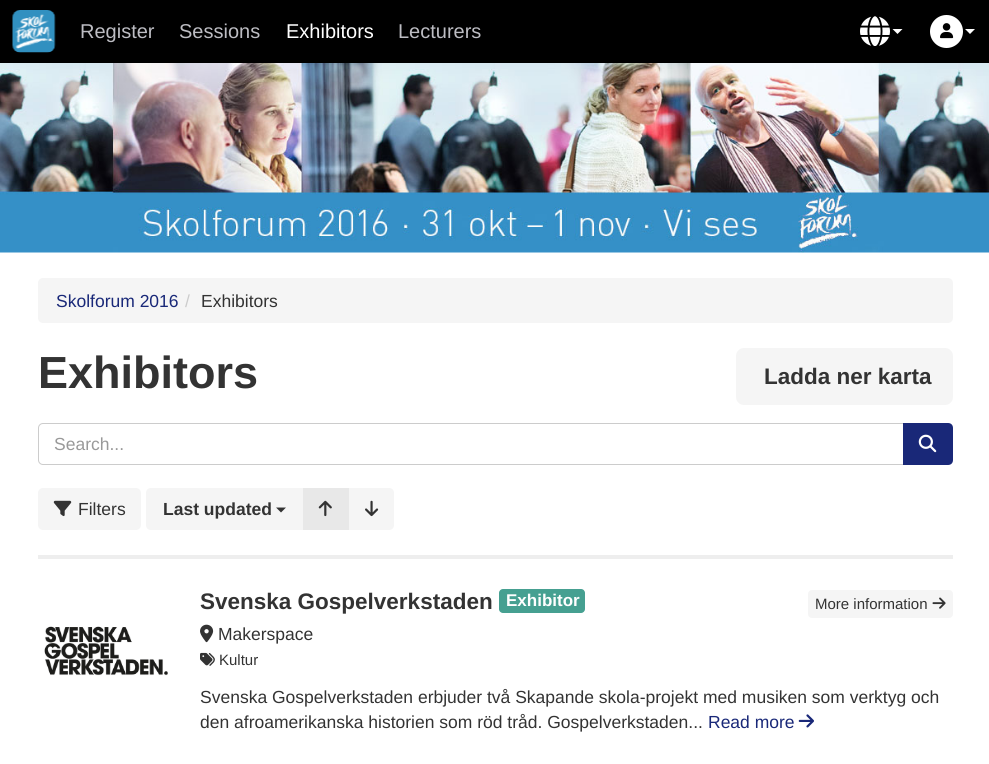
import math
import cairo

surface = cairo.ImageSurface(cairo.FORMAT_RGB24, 989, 764)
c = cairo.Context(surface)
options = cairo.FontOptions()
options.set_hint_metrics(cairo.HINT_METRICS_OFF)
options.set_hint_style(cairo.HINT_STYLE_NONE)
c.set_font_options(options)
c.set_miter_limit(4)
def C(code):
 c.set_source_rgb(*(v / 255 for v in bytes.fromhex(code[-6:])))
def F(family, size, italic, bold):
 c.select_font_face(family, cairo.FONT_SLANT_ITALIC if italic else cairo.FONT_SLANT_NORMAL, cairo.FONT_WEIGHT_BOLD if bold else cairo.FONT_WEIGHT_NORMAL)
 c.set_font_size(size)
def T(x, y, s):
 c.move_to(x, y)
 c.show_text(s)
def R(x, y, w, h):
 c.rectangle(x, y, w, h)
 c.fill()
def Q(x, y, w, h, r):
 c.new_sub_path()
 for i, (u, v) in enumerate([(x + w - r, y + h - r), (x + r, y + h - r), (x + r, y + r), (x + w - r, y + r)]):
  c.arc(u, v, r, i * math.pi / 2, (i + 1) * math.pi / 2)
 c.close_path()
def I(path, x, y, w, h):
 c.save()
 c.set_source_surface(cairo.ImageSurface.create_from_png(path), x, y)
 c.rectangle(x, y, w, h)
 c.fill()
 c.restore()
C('ffffff')
c.paint()
C('000000')
R(0,0,989,63)
I('1.png',12,10,44,43)
F('Liberation Sans',20,0,0)
C('bdbdc3')
T(80,38,'Register')
T(179,38,'Sessions')
C('ffffff')
T(286,38,'Exhibitors')
C('bdbdc3')
T(398,38,'Lecturers')
I('2.png',860,16,30,30)
C('ffffff')
c.new_path()
c.move_to(892.5,29)
c.line_to(902.5,29)
c.line_to(897.5,34)
c.close_path()
c.fill()
c.arc(946.5,31.5,16.5,0,2 * math.pi)
c.fill()
I('3.png',940,23,14,16)
c.new_path()
c.move_to(965,29)
c.line_to(975,29)
c.line_to(970,34)
c.close_path()
c.fill()
I('4.png',0,63,989,190)
C('f5f5f5')
Q(38,278,915,45,5)
c.fill()
F('Liberation Sans',17.5,0,0)
C('192878')
T(56,307,'Skolforum 2016')
C('cccccc')
T(185,307,'/')
C('333333')
T(201,307,'Exhibitors')
F('Liberation Sans',45,0,1)
T(38,388,'Exhibitors')
C('f5f5f5')
Q(736,348,217,57,8)
c.fill()
F('Liberation Sans',22.5,0,1)
C('333333')
T(764,384,'Ladda ner karta')
c.new_path()
c.move_to(43,423.5)
c.line_to(903.5,423.5)
c.line_to(903.5,464.5)
c.line_to(43,464.5)
c.curve_to(40.5,464.5,38.5,462.5,38.5,460)
c.line_to(38.5,428)
c.curve_to(38.5,425.5,40.5,423.5,43,423.5)
c.close_path()
C('cccccc')
c.set_line_width(1)
c.stroke()
F('Liberation Sans',17.5,0,0)
C('999999')
T(54,450,'Search...')
C('192878')
c.new_path()
c.move_to(903,423)
c.line_to(948,423)
c.curve_to(951,423,953,425,953,428)
c.line_to(953,460)
c.curve_to(953,463,951,465,948,465)
c.line_to(903,465)
c.close_path()
c.fill()
I('5.png',918,434,19,19)
C('f5f5f5')
Q(38,488,103,42,5)
c.fill()
I('6.png',53,500,19,17)
C('333333')
T(78,515,'Filters')
C('f5f5f5')
c.new_path()
c.move_to(151,488)
c.line_to(303,488)
c.line_to(303,530)
c.line_to(151,530)
c.curve_to(148,530,146,528,146,525)
c.line_to(146,493)
c.curve_to(146,490,148,488,151,488)
c.close_path()
c.fill()
F('Liberation Sans',17.5,0,1)
C('333333')
T(163,515,'Last updated')
c.new_path()
c.move_to(276,507.5)
c.line_to(286,507.5)
c.line_to(281,512.5)
c.close_path()
c.fill()
C('e8e8e8')
R(303,488,46,42)
I('7.png',318,500,14,17)
C('f5f5f5')
c.new_path()
c.move_to(349,488)
c.line_to(389,488)
c.curve_to(392,488,394,490,394,493)
c.line_to(394,525)
c.curve_to(394,528,392,530,389,530)
c.line_to(349,530)
c.close_path()
c.fill()
I('8.png',365,500,14,17)
C('eeeeee')
R(38,555,915,4)
I('9.png',44,626,124,50)
F('Liberation Sans',22.5,0,1)
C('333333')
T(200,609,'Svenska Gospelverkstaden')
C('46a091')
Q(499,589,86,24,4)
c.fill()
F('Liberation Sans',17,0,1)
C('ffffff')
T(506,606,'Exhibitor')
I('10.png',200,624,14,19)
F('Liberation Sans',17.5,0,0)
C('333333')
T(218,640,'Makerspace')
I('11.png',200,652,15,14)
F('Liberation Sans',15,0,0)
T(219,665,'Kultur')
C('f5f5f5')
Q(808,590,145,28,4)
c.fill()
C('333333')
T(815,609,'More information')
I('12.png',932,597,14,12)
F('Liberation Sans',17.5,0,0)
T(200,703,'Svenska Gospelverkstaden erbjuder två Skapande skola-projekt med musiken som verktyg och')
T(200,728,'den afroamerikanska historien som röd tråd. Gospelverkstaden...')
C('192878')
T(708,728,'Read more')
I('13.png',798,714,16,14)
surface.write_to_png('o.png')
